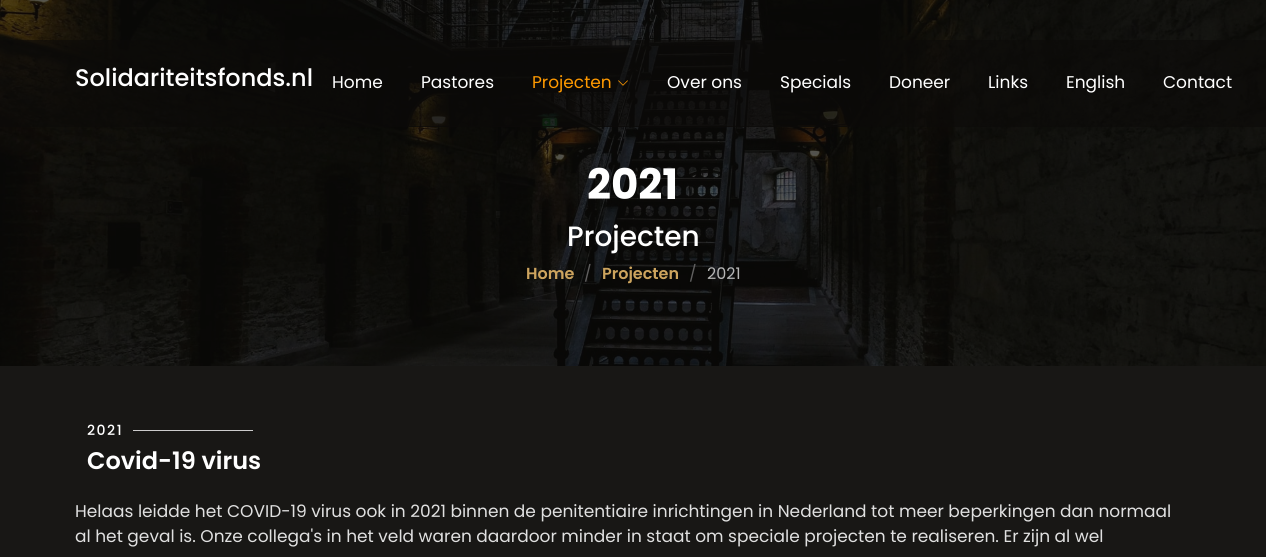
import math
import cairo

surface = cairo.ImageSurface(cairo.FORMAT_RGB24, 1266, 557)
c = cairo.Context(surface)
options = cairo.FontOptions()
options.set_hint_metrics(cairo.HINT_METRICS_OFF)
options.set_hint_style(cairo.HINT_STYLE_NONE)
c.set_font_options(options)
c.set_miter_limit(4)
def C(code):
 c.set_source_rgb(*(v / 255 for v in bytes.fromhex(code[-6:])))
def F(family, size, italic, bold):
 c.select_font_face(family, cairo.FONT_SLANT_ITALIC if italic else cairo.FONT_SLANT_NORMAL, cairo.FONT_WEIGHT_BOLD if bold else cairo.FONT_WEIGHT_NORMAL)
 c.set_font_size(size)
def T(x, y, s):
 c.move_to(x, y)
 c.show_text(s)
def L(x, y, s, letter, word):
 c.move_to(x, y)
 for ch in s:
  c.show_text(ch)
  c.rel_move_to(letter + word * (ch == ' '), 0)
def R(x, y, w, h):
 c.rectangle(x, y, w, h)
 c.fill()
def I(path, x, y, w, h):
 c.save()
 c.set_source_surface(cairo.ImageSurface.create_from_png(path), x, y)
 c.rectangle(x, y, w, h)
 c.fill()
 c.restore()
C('181715')
c.paint()
I('2.png',0,0,1266,366)
c.set_source_rgba(0.047,0.043,0.035,0.61)
R(0,40,1266,87)
R(409,126,438,1)
F('Poppins Medium',24,0,0)
C('ffffff')
T(75,86,'Solidariteitsfonds.nl')
F('Poppins',17,0,0)
T(332,88,'Home')
T(421,88,'Pastores')
C('ff9900')
T(532,88,'Projecten')
I('1.png',618,80,10,6)
C('ffffff')
T(667,88,'Over ons')
T(780,88,'Specials')
T(889,88,'Doneer')
T(988,88,'Links')
T(1066,88,'English')
T(1163,88,'Contact')
F('Poppins',42,0,1)
T(587,199,'2021')
F('Poppins Medium',28,0,0)
T(567,246,'Projecten')
F('Poppins SemiBold',16,0,0)
C('cda45e')
T(526,279,'Home')
F('Poppins',16,0,0)
C('605f5f')
T(584,279,'/')
F('Poppins SemiBold',16,0,0)
C('cda45e')
T(602,279,'Projecten')
F('Poppins',16,0,0)
C('605f5f')
T(689,279,'/')
C('b7b7b7')
T(707,279,'2021')
F('Poppins Medium',14,0,0)
C('ffffff')
L(87,435,'2021',1.5,0)
C('cccccc')
R(133,430,120,1)
F('Poppins SemiBold',24,0,0)
C('ffffff')
T(87,469,'Covid-19 virus')
F('Poppins',17,0,0)
C('e0e0e0')
T(75,517,'Helaas leidde het COVID-19 virus ook in 2021 binnen de penitentiaire inrichtingen in Nederland tot meer beperkingen dan normaal')
T(75,542,'al het geval is. Onze collega\'s in het veld waren daardoor minder in staat om speciale projecten te realiseren. Er zijn al wel')
surface.write_to_png('o.png')
